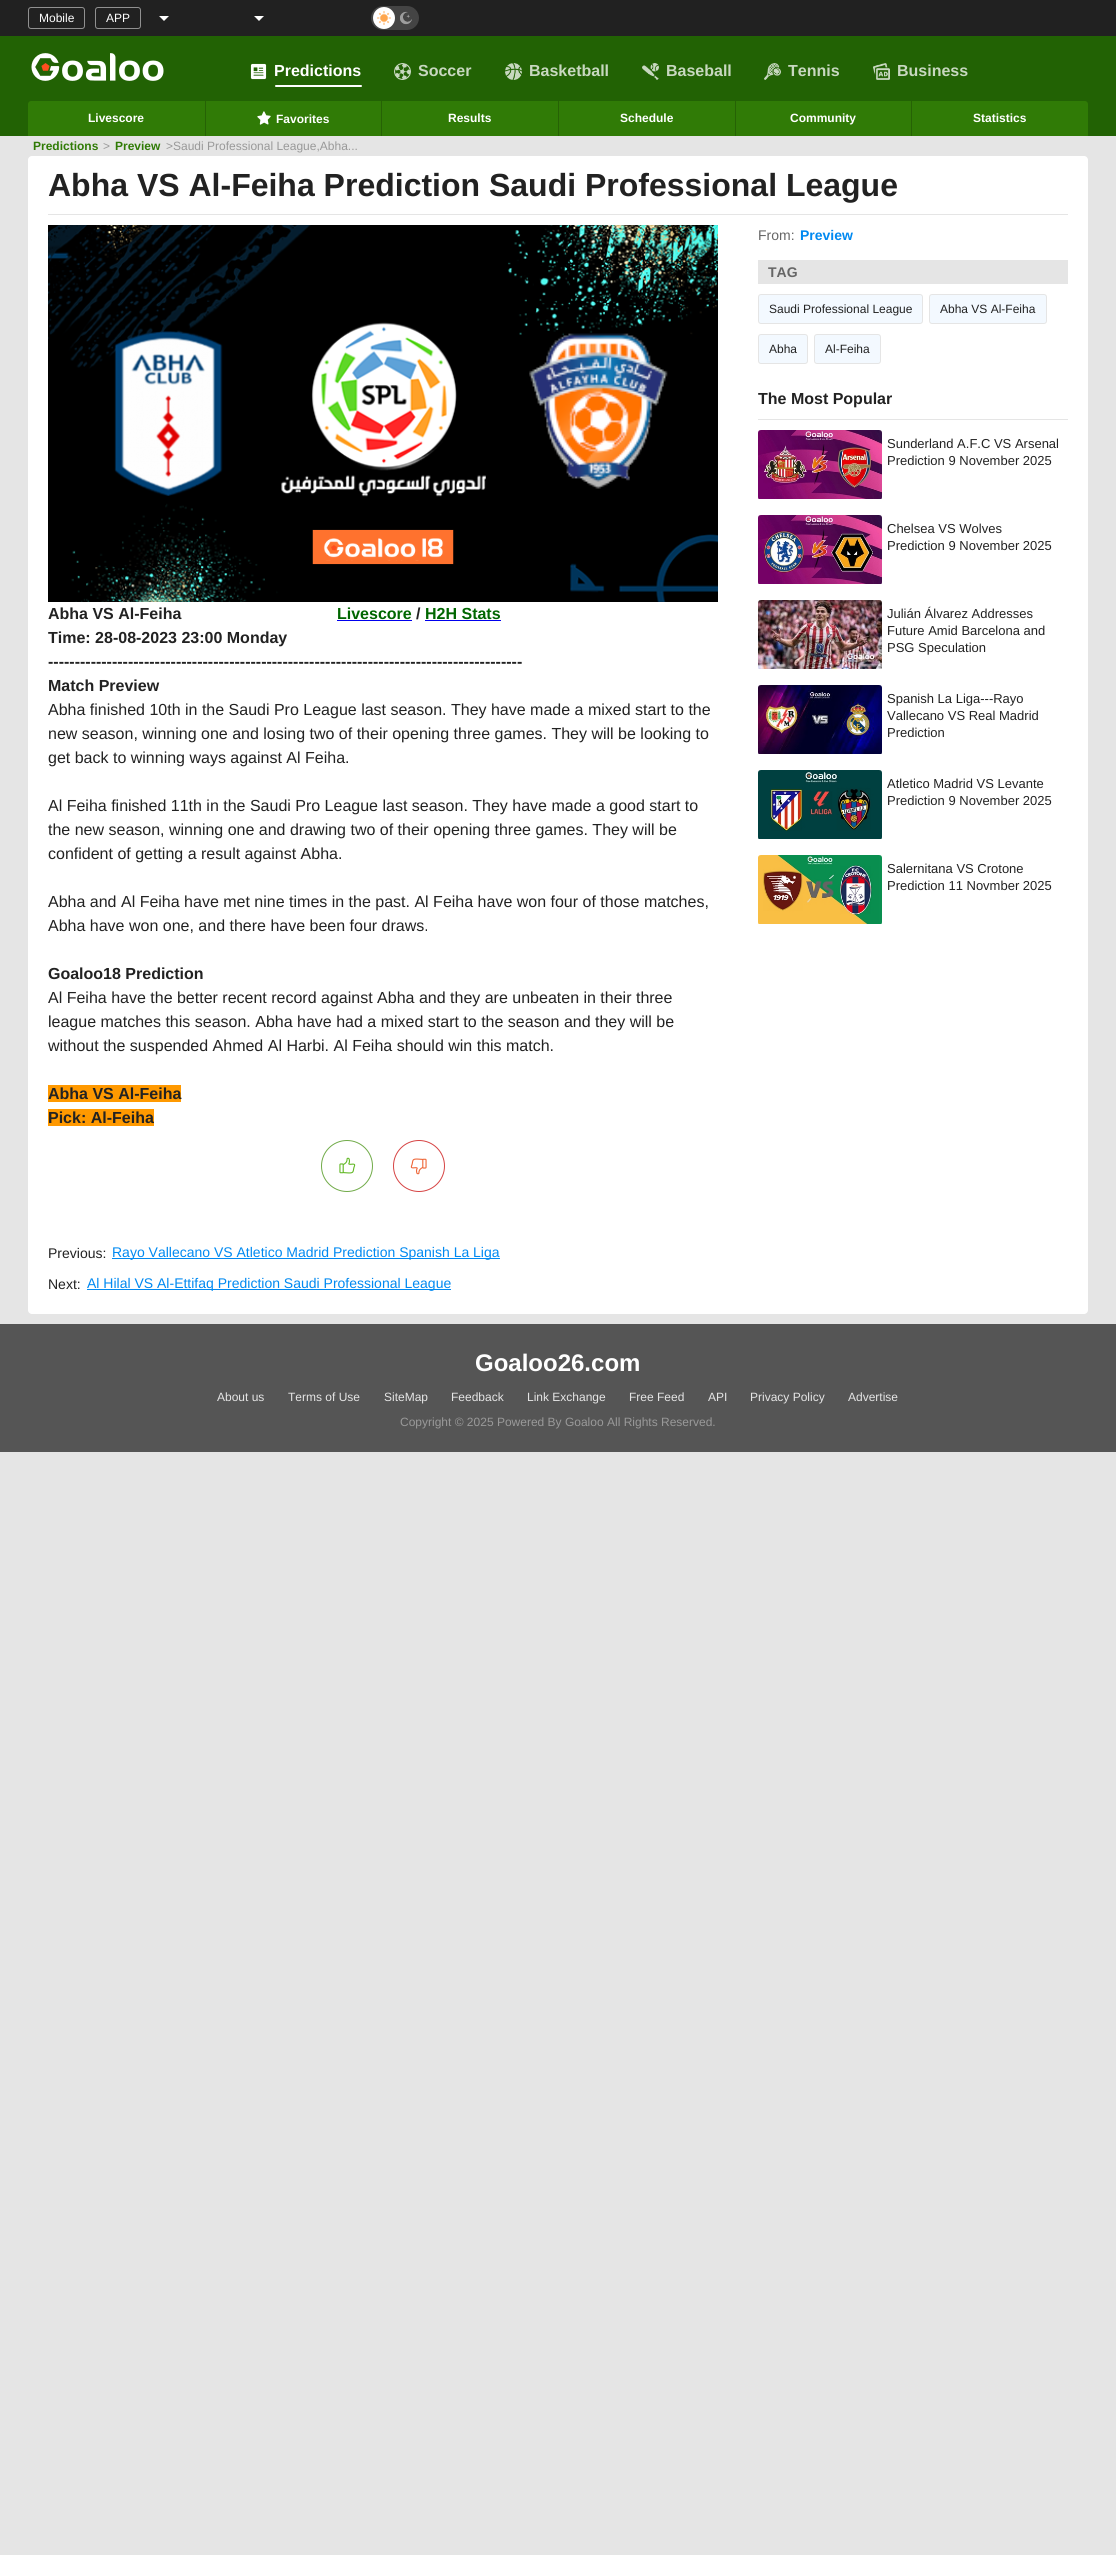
import math
import cairo

surface = cairo.ImageSurface(cairo.FORMAT_RGB24, 1116, 2555)
c = cairo.Context(surface)
options = cairo.FontOptions()
options.set_hint_metrics(cairo.HINT_METRICS_OFF)
options.set_hint_style(cairo.HINT_STYLE_NONE)
c.set_font_options(options)
c.set_miter_limit(4)
def C(code):
 c.set_source_rgb(*(v / 255 for v in bytes.fromhex(code[-6:])))
def F(family, size, italic, bold):
 c.select_font_face(family, cairo.FONT_SLANT_ITALIC if italic else cairo.FONT_SLANT_NORMAL, cairo.FONT_WEIGHT_BOLD if bold else cairo.FONT_WEIGHT_NORMAL)
 c.set_font_size(size)
def T(x, y, s):
 c.move_to(x, y)
 c.show_text(s)
def R(x, y, w, h):
 c.rectangle(x, y, w, h)
 c.fill()
def Q(x, y, w, h, r):
 c.new_sub_path()
 for i, (u, v) in enumerate([(x + w - r, y + h - r), (x + r, y + h - r), (x + r, y + r), (x + w - r, y + r)]):
  c.arc(u, v, r, i * math.pi / 2, (i + 1) * math.pi / 2)
 c.close_path()
def I(path, x, y, w, h):
 c.save()
 c.set_source_surface(cairo.ImageSurface.create_from_png(path), x, y)
 c.rectangle(x, y, w, h)
 c.fill()
 c.restore()
C('e5e5e5')
c.paint()
C('226204')
R(0,36,1116,100)
C('212121')
R(0,0,1116,36)
Q(28.5,7.5,56,21,2.5)
C('909090')
c.set_line_width(1)
c.stroke()
F('Liberation Sans',12,0,0)
C('ffffff')
T(39,22,'Mobile')
Q(95.5,7.5,45,21,2.5)
C('909090')
c.stroke()
C('ffffff')
T(106,22,'APP')
c.new_path()
c.move_to(159,16)
c.line_to(169,16)
c.line_to(164,21)
c.close_path()
c.fill()
c.new_path()
c.move_to(254,16)
c.line_to(264,16)
c.line_to(259,21)
c.close_path()
c.fill()
C('444444')
Q(371,6,48,24,12)
c.fill()
I('1.png',400,11,12,14)
C('ffffff')
c.arc(384,18,11,0,2 * math.pi)
c.fill()
I('2.png',377,11,14,14)
I('3.png',31,53,133,28)
I('4.png',250,63,17,17)
F('Liberation Sans',16,0,1)
T(274,76,'Predictions')
Q(275,85,87,2,1)
c.fill()
I('5.png',394,63,17,17)
C('c8d8c0')
T(418,76,'Soccer')
I('6.png',505,63,17,17)
T(529,76,'Basketball')
I('7.png',642,63,17,17)
T(666,76,'Baseball')
I('8.png',764,63,17,17)
T(788,76,'Tennis')
I('9.png',873,63,17,17)
T(897,76,'Business')
C('307b06')
c.new_path()
c.move_to(31,101)
c.line_to(1085,101)
c.curve_to(1086.5,101,1088,102.5,1088,104)
c.line_to(1088,136)
c.line_to(28,136)
c.line_to(28,104)
c.curve_to(28,102.5,29.5,101,31,101)
c.close_path()
c.fill()
C('266205')
R(205,101,1,35)
F('Liberation Sans',12,0,1)
C('ffffff')
T(88,122,'Livescore')
C('266205')
R(381,101,1,35)
I('10.png',257,111,14,14)
C('ffffff')
T(276,123,'Favorites')
C('266205')
R(558,101,1,35)
C('ffffff')
T(448,122,'Results')
C('266205')
R(735,101,1,35)
C('ffffff')
T(620,122,'Schedule')
C('266205')
R(911,101,1,35)
C('ffffff')
T(790,122,'Community')
T(973,122,'Statistics')
C('307b06')
T(33,150,'Predictions')
F('Liberation Sans',12,0,0)
C('999999')
T(103,150,'>')
F('Liberation Sans',12,0,1)
C('307b06')
T(115,150,'Preview')
F('Liberation Sans',12,0,0)
C('999999')
T(166,150,'>Saudi Professional League,Abha...')
C('ffffff')
Q(28,156,1060,1158,4)
c.fill()
C('e5e5e5')
R(48,214,1020,1)
F('Liberation Sans',32,0,1)
C('222222')
T(48,196,'Abha VS Al-Feiha Prediction Saudi Professional League')
I('11.png',48,225,670,377)
F('Liberation Sans',16,0,1)
T(48,619,'Abha VS Al-Feiha')
C('006600')
T(337,619,'Livescore')
C('0000ee')
R(337,620,75,1)
C('222222')
T(416,619,'/')
C('006600')
T(425,619,'H2H Stats')
C('0000ee')
R(425,620,76,1)
C('222222')
T(48,643,'Time: 28-08-2023 23:00 Monday')
T(48,667,'-----------------------------------------------------------------------------------------')
T(48,691,'Match Preview')
F('Liberation Sans',16,0,0)
T(48,715,'Abha finished 10th in the Saudi Pro League last season. They have made a mixed start to the')
T(48,739,'new season, winning one and losing two of their opening three games. They will be looking to')
T(48,763,'get back to winning ways against Al Feiha.')
T(48,811,'Al Feiha finished 11th in the Saudi Pro League last season. They have made a good start to')
T(48,835,'the new season, winning one and drawing two of their opening three games. They will be')
T(48,859,'confident of getting a result against Abha.')
T(48,907,'Abha and Al Feiha have met nine times in the past. Al Feiha have won four of those matches,')
T(48,931,'Abha have won one, and there have been four draws.')
F('Liberation Sans',16,0,1)
T(48,979,'Goaloo18 Prediction')
F('Liberation Sans',16,0,0)
T(48,1003,'Al Feiha have the better recent record against Abha and they are unbeaten in their three')
T(48,1027,'league matches this season. Abha have had a mixed start to the season and they will be')
T(48,1051,'without the suspended Ahmed Al Harbi. Al Feiha should win this match.')
C('ff9900')
R(48,1085,133,17)
F('Liberation Sans',16,0,1)
C('222222')
T(48,1099,'Abha VS Al-Feiha')
C('ff9900')
R(48,1109,106,17)
C('222222')
T(48,1123,'Pick: Al-Feiha')
c.new_path()
c.arc(347,1166,25.5,0,2 * math.pi)
C('71ab49')
c.stroke()
I('12.png',339,1157,17,17)
c.arc(419,1166,25.5,0,2 * math.pi)
C('d64444')
c.stroke()
I('13.png',410,1158,17,17)
F('Liberation Sans',14,0,0)
C('222222')
T(48,1258,'Previous:')
C('0089f1')
R(112,1258,388,1)
T(112,1257,'Rayo Vallecano VS Atletico Madrid Prediction Spanish La Liga')
C('222222')
T(48,1289,'Next:')
C('0089f1')
R(87,1289,364,1)
T(87,1288,'Al Hilal VS Al-Ettifaq Prediction Saudi Professional League')
C('666666')
T(758,240,'From:')
F('Liberation Sans',14,0,1)
C('0089f1')
T(800,240,'Preview')
C('e5e5e5')
R(758,260,310,24)
C('666666')
T(768,277,'TAG')
C('f3f9ff')
Q(758.5,294.5,164,29,2.5)
c.fill_preserve()
C('e5e5e5')
c.stroke()
F('Liberation Sans',12,0,0)
C('222222')
T(769,313,'Saudi Professional League')
C('f3f9ff')
Q(929.5,294.5,117,29,2.5)
c.fill_preserve()
C('e5e5e5')
c.stroke()
C('222222')
T(940,313,'Abha VS Al-Feiha')
C('f3f9ff')
Q(758.5,334.5,49,29,2.5)
c.fill_preserve()
C('e5e5e5')
c.stroke()
C('222222')
T(769,353,'Abha')
C('f3f9ff')
Q(814.5,334.5,66,29,2.5)
c.fill_preserve()
C('e5e5e5')
c.stroke()
C('222222')
T(825,353,'Al-Feiha')
C('e5e5e5')
R(758,419,310,1)
F('Liberation Sans',16,0,1)
C('222222')
T(758,404,'The Most Popular')
I('14.png',758,430,124,69)
F('Liberation Sans',13,0,0)
T(887,448,'Sunderland A.F.C VS Arsenal')
T(887,465,'Prediction 9 November 2025')
I('15.png',758,515,124,69)
T(887,533,'Chelsea VS Wolves')
T(887,550,'Prediction 9 November 2025')
I('16.png',758,600,124,69)
T(887,618,'Julián Álvarez Addresses')
T(887,635,'Future Amid Barcelona and')
T(887,652,'PSG Speculation')
I('17.png',758,685,124,69)
T(887,703,'Spanish La Liga---Rayo')
T(887,720,'Vallecano VS Real Madrid')
T(887,737,'Prediction')
I('18.png',758,770,124,69)
T(887,788,'Atletico Madrid VS Levante')
T(887,805,'Prediction 9 November 2025')
I('19.png',758,855,124,69)
T(887,873,'Salernitana VS Crotone')
T(887,890,'Prediction 11 Novmber 2025')
C('555555')
R(0,1324,1116,128)
F('Liberation Sans',24,0,1)
C('ffffff')
T(475,1371,'Goaloo26.com')
F('Liberation Sans',12,0,0)
C('e5e5e5')
T(217,1401,'About us')
T(288,1401,'Terms of Use')
T(384,1401,'SiteMap')
T(451,1401,'Feedback')
T(527,1401,'Link Exchange')
T(629,1401,'Free Feed')
T(708,1401,'API')
T(750,1401,'Privacy Policy')
T(848,1401,'Advertise')
C('999999')
T(400,1426,'Copyright © 2025 Powered By Goaloo All Rights Reserved.')
surface.write_to_png('o.png')
